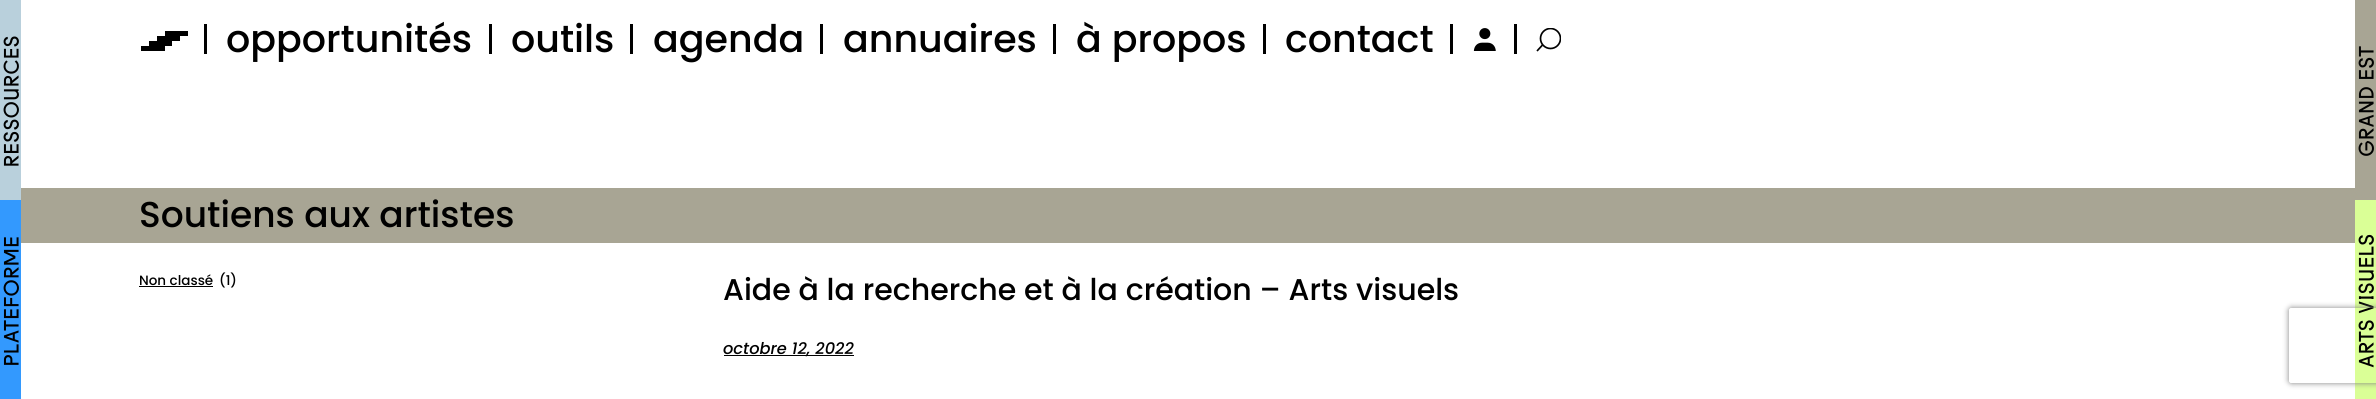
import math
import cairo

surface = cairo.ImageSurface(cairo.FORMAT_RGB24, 2376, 399)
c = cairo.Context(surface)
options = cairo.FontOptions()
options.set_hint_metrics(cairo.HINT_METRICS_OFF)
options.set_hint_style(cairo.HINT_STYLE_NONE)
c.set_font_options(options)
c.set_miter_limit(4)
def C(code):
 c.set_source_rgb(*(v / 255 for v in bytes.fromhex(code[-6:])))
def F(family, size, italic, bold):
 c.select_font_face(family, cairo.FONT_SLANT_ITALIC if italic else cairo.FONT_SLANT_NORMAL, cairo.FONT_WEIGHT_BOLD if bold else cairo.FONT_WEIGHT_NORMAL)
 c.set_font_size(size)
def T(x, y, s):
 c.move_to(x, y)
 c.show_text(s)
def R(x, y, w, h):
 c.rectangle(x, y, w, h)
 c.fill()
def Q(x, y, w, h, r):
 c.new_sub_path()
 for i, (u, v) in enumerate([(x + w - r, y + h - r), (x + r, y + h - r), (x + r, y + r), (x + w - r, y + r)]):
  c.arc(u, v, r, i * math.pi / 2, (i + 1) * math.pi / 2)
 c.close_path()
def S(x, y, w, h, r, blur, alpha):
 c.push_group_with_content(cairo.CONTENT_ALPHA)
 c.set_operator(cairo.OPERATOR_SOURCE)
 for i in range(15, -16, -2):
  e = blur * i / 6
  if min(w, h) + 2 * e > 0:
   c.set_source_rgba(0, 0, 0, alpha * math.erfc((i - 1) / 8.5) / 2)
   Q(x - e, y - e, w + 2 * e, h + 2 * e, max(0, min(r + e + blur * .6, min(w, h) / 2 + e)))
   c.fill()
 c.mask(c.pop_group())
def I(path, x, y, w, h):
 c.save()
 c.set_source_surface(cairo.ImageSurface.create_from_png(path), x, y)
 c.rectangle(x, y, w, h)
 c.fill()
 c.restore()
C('ffffff')
c.paint()
C('b9d0dc')
R(0,0,21,200)
I('1.png',3,36,16,130)
C('a8a594')
R(2355,0,21,200)
I('2.png',2358,46,16,110)
C('3399fe')
R(0,200,21,199)
I('3.png',3,237,16,128)
C('daff96')
R(2355,200,21,199)
I('4.png',2358,234,16,134)
C('000000')
R(165,31,23,5)
R(157,36,23,5)
R(149,41,23,5)
R(141,46,24,5)
R(204,24,3,30)
F('Poppins Medium',38,0,0)
T(226,52,'opportunités')
R(489,24,3,30)
T(511,52,'outils')
R(630,24,3,30)
T(653,52,'agenda')
R(820,24,3,30)
T(843,52,'annuaires')
R(1053,24,3,30)
T(1076,52,'à propos')
R(1263,24,3,30)
T(1285,52,'contact')
R(1450,24,3,30)
I('5.png',1473,28,23,23)
R(1514,24,3,30)
c.save()
c.rectangle(1536,28,25,23)
c.clip()
c.arc(1550.5,38.5,10,0,2 * math.pi)
c.set_line_width(1.7)
c.stroke()
c.restore()
c.new_path()
c.move_to(1537,51)
c.line_to(1542.5,45)
c.set_line_width(1.7)
c.stroke()
C('a8a594')
R(21,188,2334,55)
F('Poppins Medium',36,0,0)
C('000000')
T(139,227,'Soutiens aux artistes')
F('Poppins Medium',13.5,0,0)
T(139,285,'Non classé')
R(139,286,74,1)
T(219,285,'(1)')
F('Poppins Medium',30,0,0)
T(723,300,'Aide à la recherche et à la création – Arts visuels')
R(724,355,130,1)
F('Poppins Medium',16.25,1,0)
T(723,354,'octobre 12, 2022')
c.save()
c.set_fill_rule(cairo.FILL_RULE_EVEN_ODD)
c.new_path()
c.move_to(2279,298)
c.line_to(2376,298)
c.line_to(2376,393)
c.line_to(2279,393)
c.close_path()
c.move_to(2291.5,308)
c.line_to(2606.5,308)
c.curve_to(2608,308,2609,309,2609,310.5)
c.line_to(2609,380.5)
c.curve_to(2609,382,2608,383,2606.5,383)
c.line_to(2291.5,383)
c.curve_to(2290,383,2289,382,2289,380.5)
c.line_to(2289,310.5)
c.curve_to(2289,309,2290,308,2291.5,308)
c.close_path()
c.clip()
C('808080')
S(2289,308,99,75,2.5,3,1)
c.restore()
surface.write_to_png('o.png')
